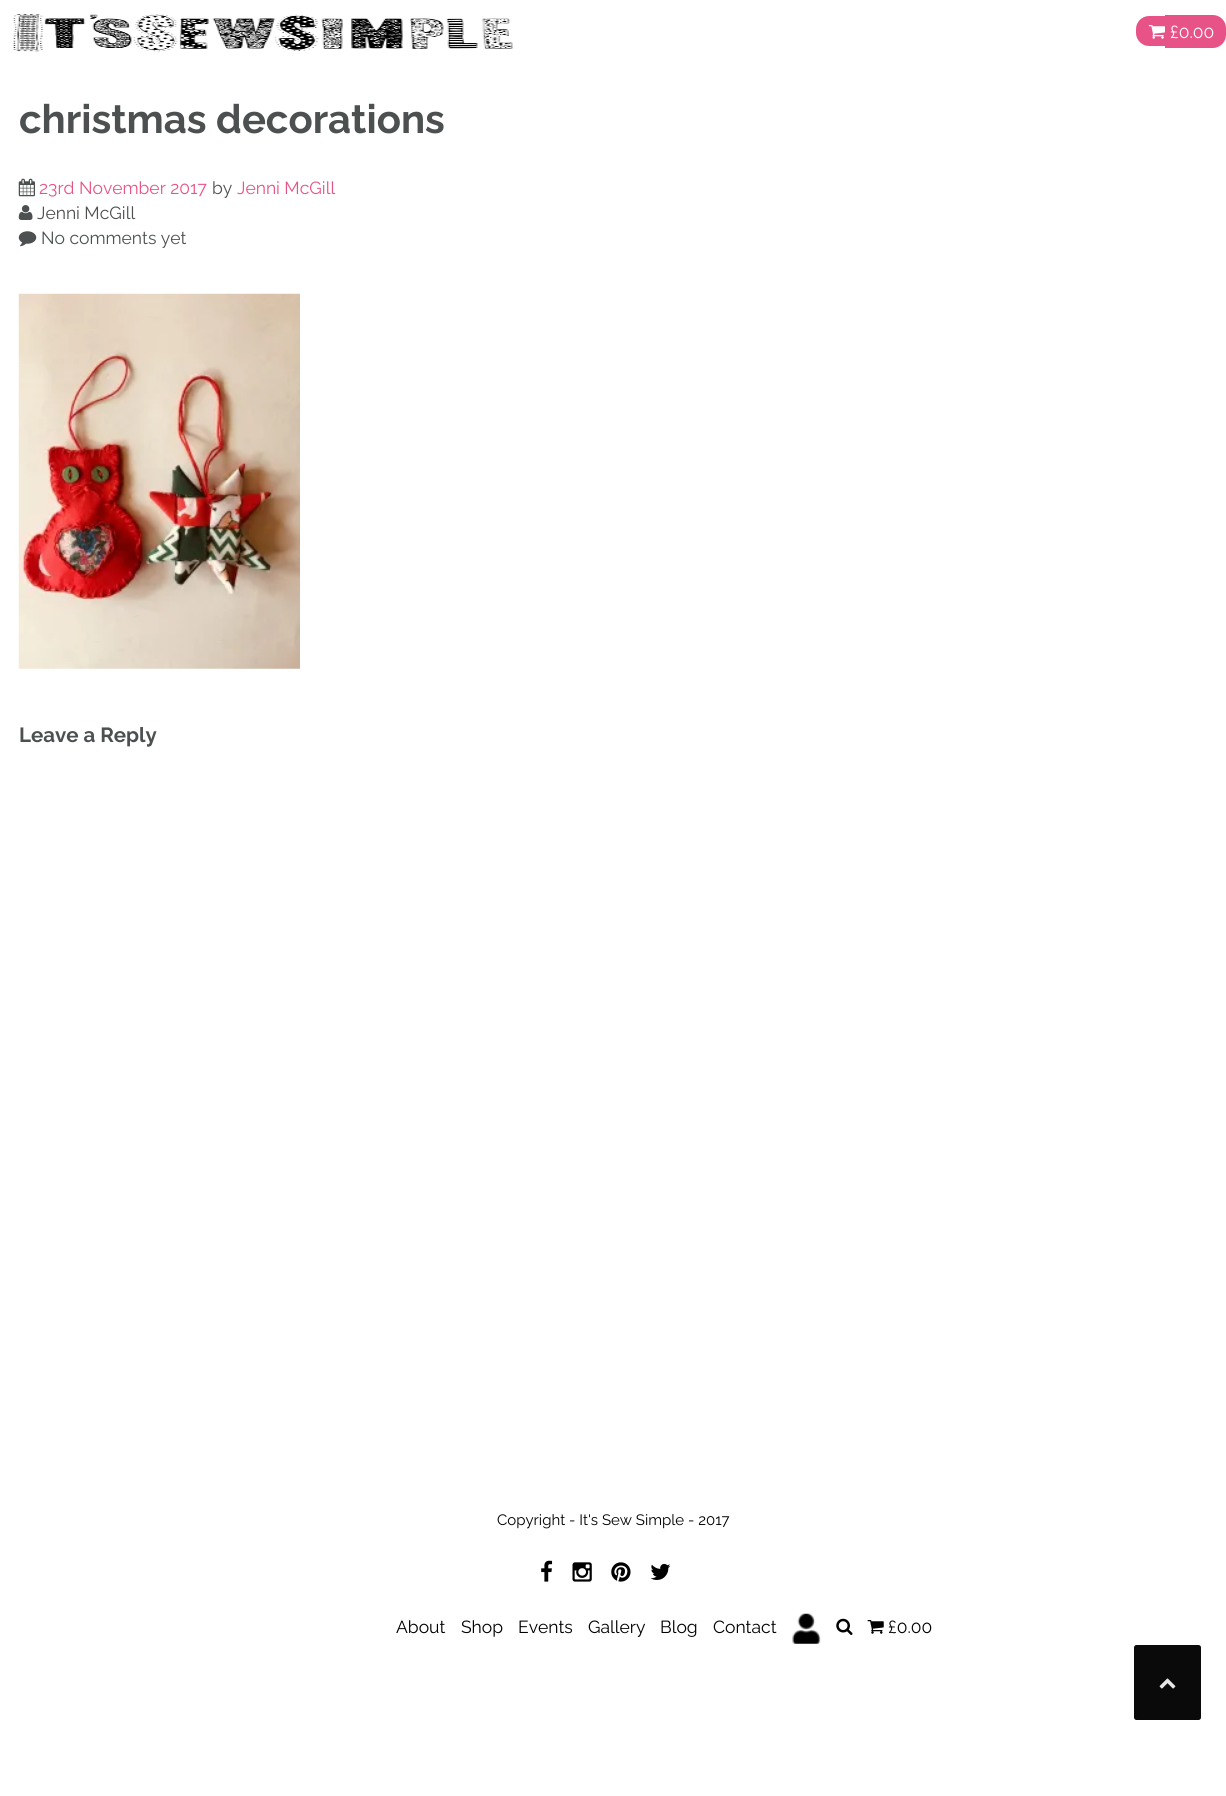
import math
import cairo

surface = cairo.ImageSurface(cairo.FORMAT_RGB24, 1226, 1796)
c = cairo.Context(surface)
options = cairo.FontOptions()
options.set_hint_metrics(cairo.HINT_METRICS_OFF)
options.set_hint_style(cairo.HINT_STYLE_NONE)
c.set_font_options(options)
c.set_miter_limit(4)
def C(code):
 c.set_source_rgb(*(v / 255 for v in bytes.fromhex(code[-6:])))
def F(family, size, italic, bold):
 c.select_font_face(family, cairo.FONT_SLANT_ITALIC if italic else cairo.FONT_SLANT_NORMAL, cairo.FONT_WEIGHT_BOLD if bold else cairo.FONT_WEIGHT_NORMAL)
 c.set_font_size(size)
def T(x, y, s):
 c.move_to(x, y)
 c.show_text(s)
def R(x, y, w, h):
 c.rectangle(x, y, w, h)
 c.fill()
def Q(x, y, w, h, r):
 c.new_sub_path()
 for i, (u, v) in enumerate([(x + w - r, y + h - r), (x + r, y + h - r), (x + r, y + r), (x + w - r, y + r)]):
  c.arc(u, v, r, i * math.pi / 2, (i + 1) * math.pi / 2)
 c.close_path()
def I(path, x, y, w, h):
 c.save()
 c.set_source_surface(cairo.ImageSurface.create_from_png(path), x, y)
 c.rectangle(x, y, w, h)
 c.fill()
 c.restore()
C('ffffff')
c.paint()
I('1.png',12,14,501,38)
C('e85387')
c.new_path()
c.move_to(1149,16)
c.line_to(1165,16)
c.line_to(1165,46)
c.line_to(1149,46)
c.curve_to(1142,46,1136,40,1136,33)
c.line_to(1136,29)
c.curve_to(1136,22,1142,16,1149,16)
c.close_path()
c.fill()
R(1165,15,14,33)
c.new_path()
c.move_to(1179,15)
c.line_to(1213,15)
c.curve_to(1220,15,1226,21,1226,28)
c.line_to(1226,35)
c.curve_to(1226,42,1220,48,1213,48)
c.line_to(1179,48)
c.close_path()
c.fill()
I('2.png',1148,25,17,14)
F('Raleway',17.5,0,0)
C('ffffff')
T(1170,38,'£0.00')
F('Raleway',40,0,1)
C('4d5051')
T(19,133,'christmas decorations')
I('3.png',18,178,17,19)
F('Raleway',17.5,0,0)
C('e85387')
T(39,194,'23rd November 2017')
C('4d5051')
T(212,194,'by')
C('e85387')
T(237,194,'Jenni McGill')
I('4.png',18,205,15,15)
C('4d5051')
T(37,219,'Jenni McGill')
I('5.png',18,231,19,16)
T(41,244,'No comments yet')
I('6.png',18,293,282,376)
F('Raleway',20.5,0,1)
T(19,742,'Leave a Reply')
F('Raleway',15,0,0)
C('000000')
T(497,1525,'Copyright - It\'s Sew Simple - 2017')
I('7.png',541,1560,12,22)
I('8.png',572,1562,20,20)
I('9.png',611,1562,20,20)
I('10.png',650,1563,21,17)
F('Raleway',17.5,0,0)
T(396,1633,'About')
T(461,1633,'Shop')
T(518,1633,'Events')
T(588,1633,'Gallery')
T(660,1633,'Blog')
T(713,1633,'Contact')
I('11.png',792,1613,29,31)
I('12.png',836,1618,17,17)
I('13.png',867,1620,17,14)
T(888,1633,'£0.00')
C('0a0a0a')
Q(1134,1645,67,75,2.5)
c.fill()
I('14.png',1159,1678,17,11)
surface.write_to_png('o.png')
